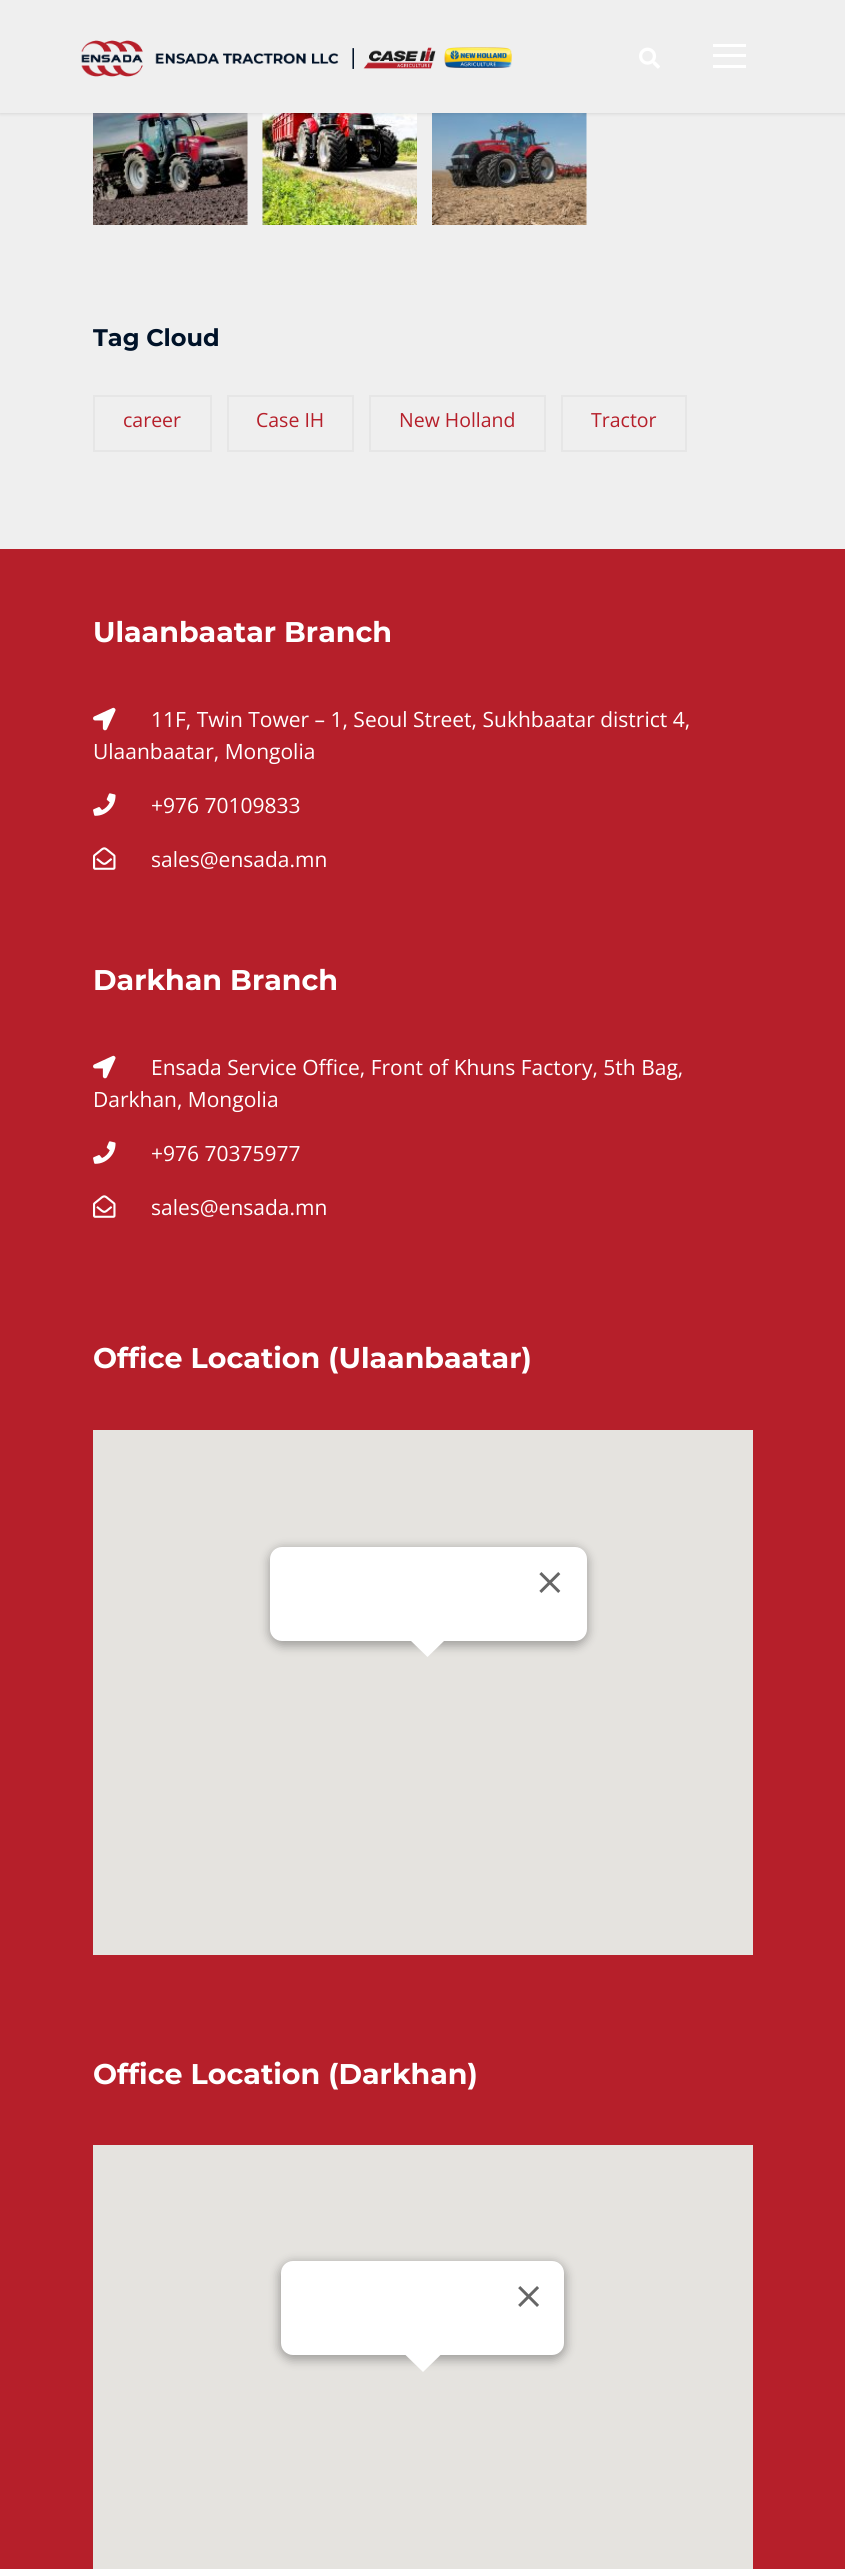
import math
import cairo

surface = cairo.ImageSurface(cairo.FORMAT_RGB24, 845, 2569)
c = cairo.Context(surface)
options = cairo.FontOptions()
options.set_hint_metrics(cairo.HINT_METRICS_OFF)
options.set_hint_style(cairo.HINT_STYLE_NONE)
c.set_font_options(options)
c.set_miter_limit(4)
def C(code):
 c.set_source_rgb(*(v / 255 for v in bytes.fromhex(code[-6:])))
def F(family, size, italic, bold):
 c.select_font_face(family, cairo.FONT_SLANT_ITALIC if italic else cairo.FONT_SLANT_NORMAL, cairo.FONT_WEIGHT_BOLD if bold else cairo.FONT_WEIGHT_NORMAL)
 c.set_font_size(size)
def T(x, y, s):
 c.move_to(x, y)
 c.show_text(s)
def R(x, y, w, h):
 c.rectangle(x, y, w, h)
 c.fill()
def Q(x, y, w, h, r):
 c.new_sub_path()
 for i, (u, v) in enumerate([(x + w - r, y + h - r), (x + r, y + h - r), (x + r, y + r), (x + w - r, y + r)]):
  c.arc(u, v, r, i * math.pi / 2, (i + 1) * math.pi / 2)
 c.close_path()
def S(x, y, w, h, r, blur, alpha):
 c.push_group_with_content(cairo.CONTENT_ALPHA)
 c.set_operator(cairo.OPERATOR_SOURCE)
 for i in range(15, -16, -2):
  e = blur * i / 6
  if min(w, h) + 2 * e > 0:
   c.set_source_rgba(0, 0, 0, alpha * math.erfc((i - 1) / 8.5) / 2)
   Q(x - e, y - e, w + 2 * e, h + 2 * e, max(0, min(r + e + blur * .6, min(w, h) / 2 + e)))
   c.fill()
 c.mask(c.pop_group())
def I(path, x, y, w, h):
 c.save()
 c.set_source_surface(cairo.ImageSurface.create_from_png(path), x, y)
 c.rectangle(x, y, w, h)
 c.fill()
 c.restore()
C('efefef')
c.paint()
I('3.png',93,113,155,112)
I('4.png',262,113,155,112)
I('5.png',432,113,155,112)
C('000000')
S(0,2,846,112,0,1.5,.1)
C('efefef')
R(0,0,845,113)
I('1.png',81,40,431,37)
I('2.png',639,47,21,22)
C('ffffff')
R(713,44,33,3)
R(713,54,33,3)
R(713,65,33,3)
F('Montserrat',24,0,1)
C('001228')
T(93,346,'Tag Cloud')
c.rectangle(94,396,117,55)
C('e6e6e6')
c.stroke()
F('Open Sans',19.5,0,0)
C('b61f2a')
T(123,427,'career')
c.rectangle(228,396,125,55)
C('e6e6e6')
c.stroke()
C('b61f2a')
T(256,427,'Case IH')
c.rectangle(370,396,175,55)
C('e6e6e6')
c.stroke()
C('b61f2a')
T(399,427,'New Holland')
c.rectangle(562,396,124,55)
C('e6e6e6')
c.stroke()
C('b61f2a')
T(591,427,'Tractor')
R(0,549,845,2020)
F('Montserrat',28.5,0,1)
C('ffffff')
T(93,642,'Ulaanbaatar Branch')
I('6.png',93,707,23,24)
F('Open Sans',21,0,0)
T(151,727,'11F, Twin Tower – 1, Seoul Street, Sukhbaatar district 4,')
T(93,759,'Ulaanbaatar, Mongolia')
I('7.png',93,793,23,23)
T(151,813,'+976 70109833')
I('8.png',93,847,23,23)
T(151,867,'sales@ensada.mn')
F('Montserrat',28.5,0,1)
T(93,990,'Darkhan Branch')
I('6.png',93,1055,23,24)
F('Open Sans',21,0,0)
T(151,1075,'Ensada Service Office, Front of Khuns Factory, 5th Bag,')
T(93,1107,'Darkhan, Mongolia')
I('7.png',93,1141,23,23)
T(151,1161,'+976 70375977')
I('8.png',93,1195,23,23)
T(151,1215,'sales@ensada.mn')
F('Montserrat',28.5,0,1)
T(93,1368,'Office Location (Ulaanbaatar)')
C('e5e3df')
R(93,1430,660,525)
C('000000')
S(269,1548,319,98,14,5,.3)
C('ffffff')
Q(270,1547,317,94,12)
c.fill()
I('9.png',539,1572,22,21)
c.new_path()
c.move_to(445,1640)
c.line_to(410,1640)
c.line_to(427.5,1657)
c.close_path()
c.fill()
T(93,2084,'Office Location (Darkhan)')
C('e5e3df')
R(93,2145,660,424)
C('000000')
S(279,2262,287,98,14,5,.3)
C('ffffff')
Q(281,2261,283,94,12)
c.fill()
I('10.png',518,2286,21,21)
c.new_path()
c.move_to(405,2354)
c.line_to(405,2354.5)
c.line_to(423,2372)
c.line_to(441.5,2354)
c.close_path()
c.fill()
surface.write_to_png('o.png')
